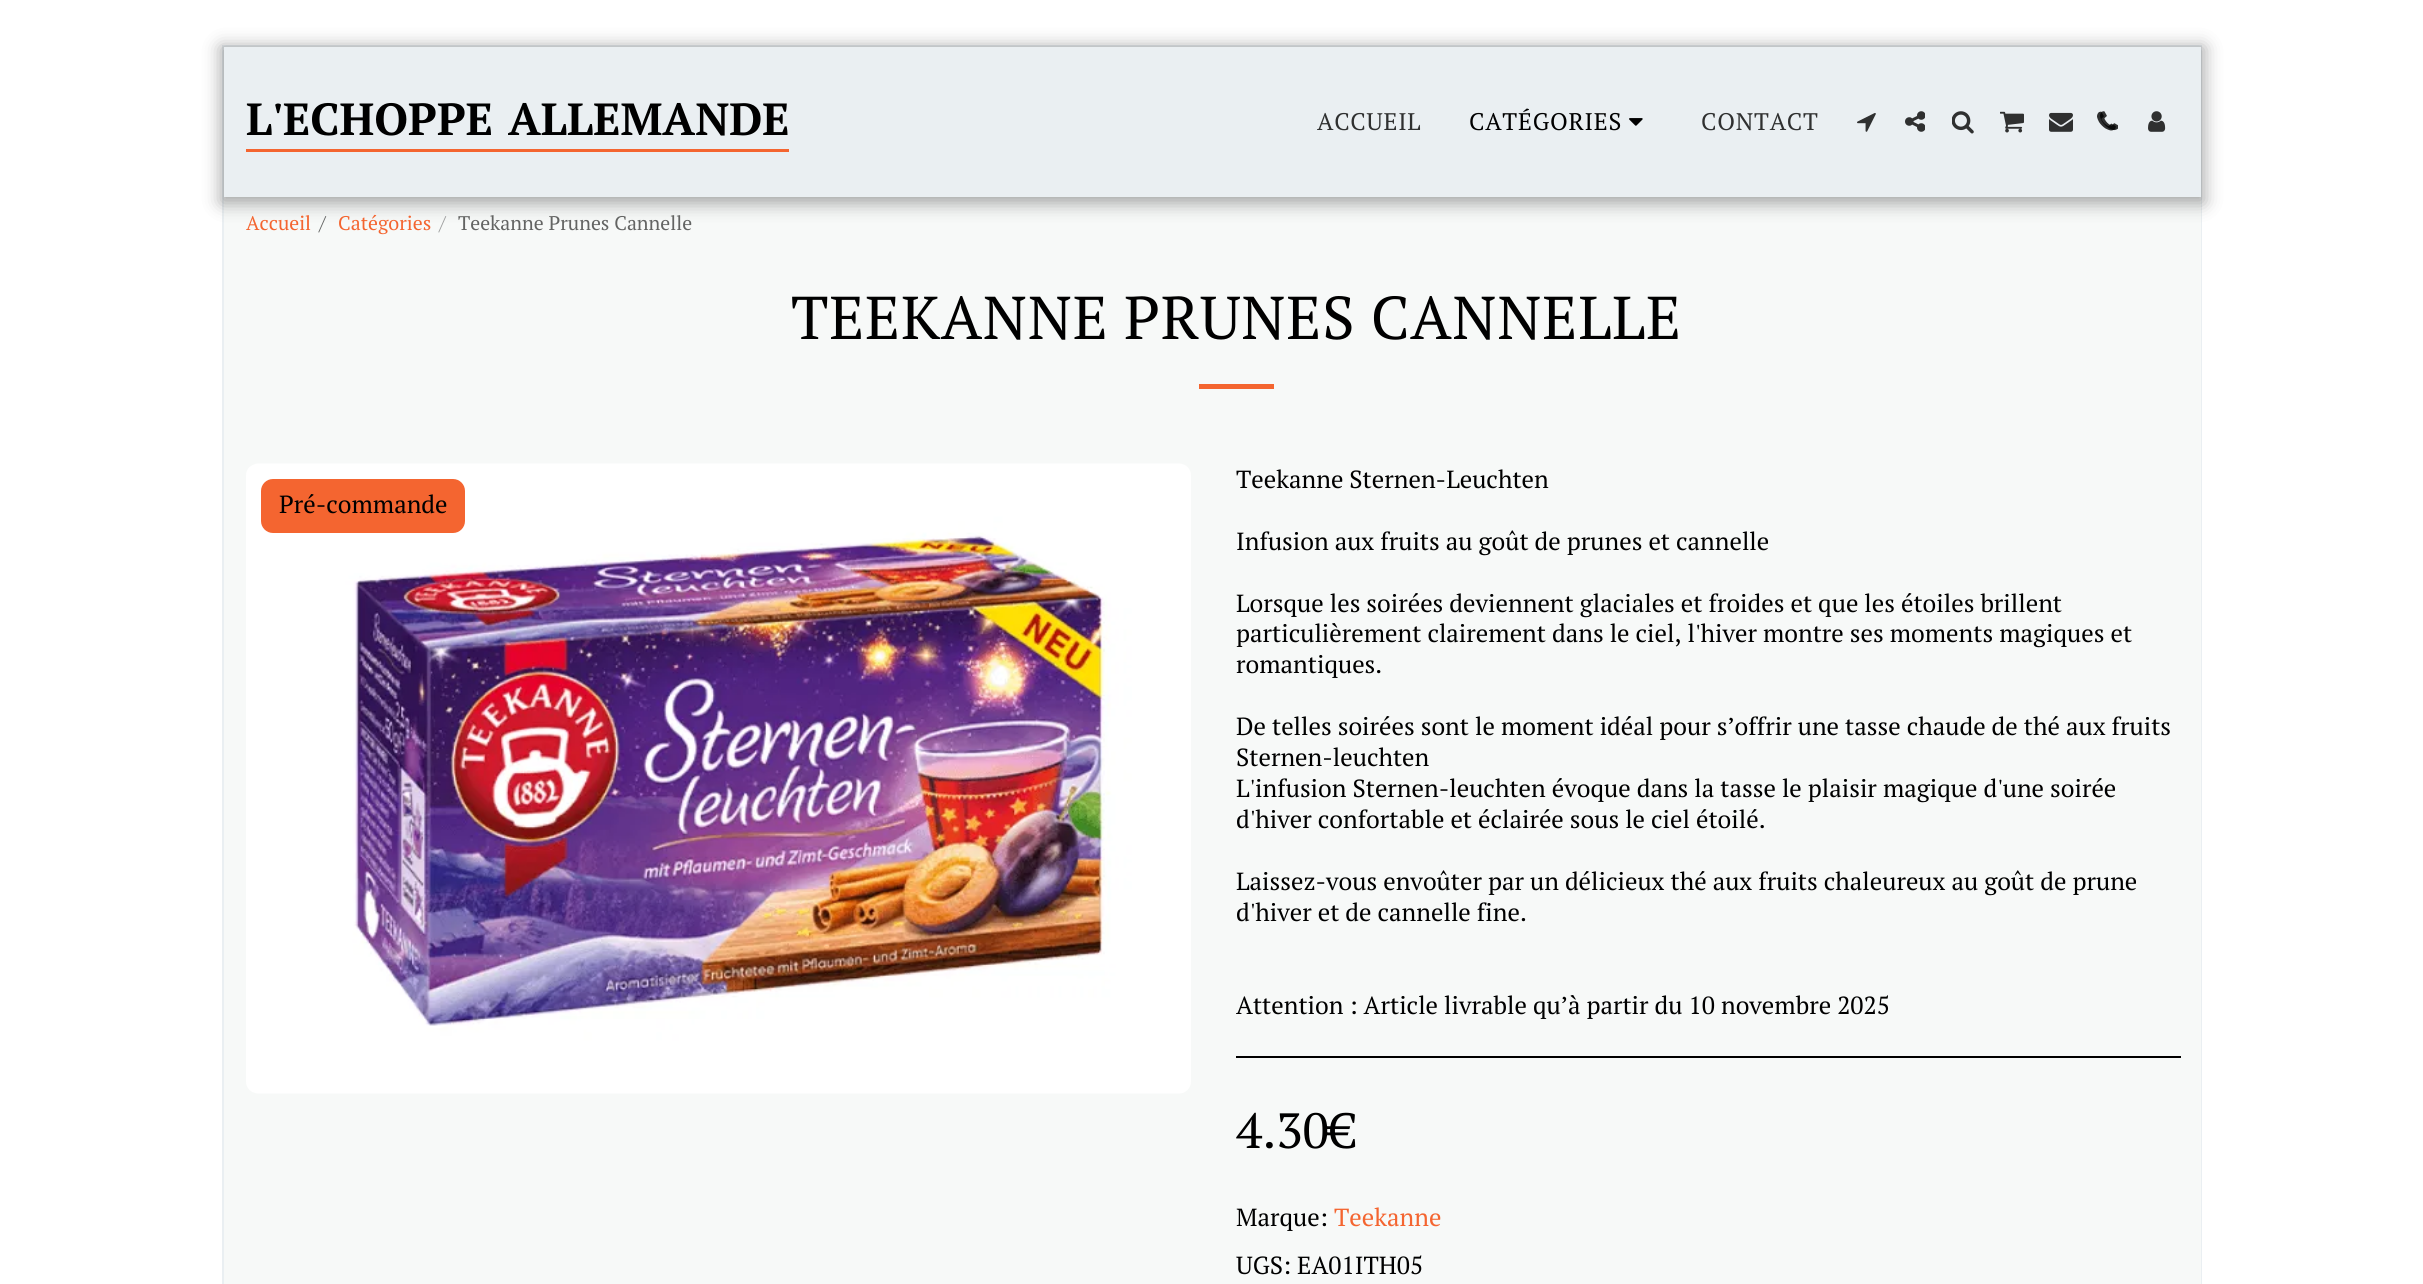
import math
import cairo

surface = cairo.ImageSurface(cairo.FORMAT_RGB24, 2423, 1284)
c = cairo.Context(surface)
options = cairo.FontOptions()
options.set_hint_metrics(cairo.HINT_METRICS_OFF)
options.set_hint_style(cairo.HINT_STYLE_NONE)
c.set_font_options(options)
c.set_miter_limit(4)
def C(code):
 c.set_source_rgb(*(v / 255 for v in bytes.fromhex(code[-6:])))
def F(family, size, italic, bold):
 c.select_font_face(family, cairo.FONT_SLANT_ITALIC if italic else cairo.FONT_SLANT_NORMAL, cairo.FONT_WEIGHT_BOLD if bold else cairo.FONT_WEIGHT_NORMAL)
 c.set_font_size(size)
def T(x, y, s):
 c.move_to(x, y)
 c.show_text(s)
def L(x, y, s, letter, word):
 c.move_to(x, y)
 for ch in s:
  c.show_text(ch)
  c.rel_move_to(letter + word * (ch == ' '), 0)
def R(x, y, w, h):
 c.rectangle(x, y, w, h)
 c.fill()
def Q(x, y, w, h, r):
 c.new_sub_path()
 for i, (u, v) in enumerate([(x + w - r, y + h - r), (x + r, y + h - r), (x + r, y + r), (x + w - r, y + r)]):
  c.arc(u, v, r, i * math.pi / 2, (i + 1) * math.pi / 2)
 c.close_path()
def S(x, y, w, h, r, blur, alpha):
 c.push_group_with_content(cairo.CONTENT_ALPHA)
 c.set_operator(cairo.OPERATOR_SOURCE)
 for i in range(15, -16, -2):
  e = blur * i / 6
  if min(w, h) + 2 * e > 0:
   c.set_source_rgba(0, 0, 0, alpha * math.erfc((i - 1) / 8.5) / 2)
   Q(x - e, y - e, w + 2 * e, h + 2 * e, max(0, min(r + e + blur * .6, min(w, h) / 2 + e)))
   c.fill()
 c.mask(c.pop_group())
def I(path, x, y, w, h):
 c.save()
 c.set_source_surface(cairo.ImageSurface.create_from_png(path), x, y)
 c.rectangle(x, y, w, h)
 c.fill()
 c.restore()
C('ffffff')
c.paint()
c.rectangle(223,46,1978,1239)
C('eaeff2')
c.stroke()
C('f7f9f8')
R(224,197,1977,1087)
C('000000')
S(221,47,1983,156,0,9,.35)
C('eaeff2')
R(224,47,1977,150)
C('f46530')
R(246,149,543,3)
F('PT Serif',45,0,1)
C('000000')
L(246,135,'L\'ECHOPPE ALLEMANDE',0,3)
F('PT Serif',24,0,0)
C('2f3030')
L(1317,130,'ACCUEIL',.75,0)
C('000000')
L(1469,130,'CATÉGORIES',.75,0)
I('1.png',1629,118,14,8)
C('2f3030')
L(1701,130,'CONTACT',.75,0)
I('2.png',1857,113,19,19)
I('3.png',1905,111,20,21)
I('4.png',1952,111,22,23)
I('5.png',2000,111,24,22)
I('6.png',2049,112,24,20)
I('7.png',2100,111,18,20)
I('8.png',2097,111,19,20)
I('9.png',2148,111,18,21)
F('PT Serif',19.75,0,0)
C('f46530')
T(246,230,'Accueil')
C('636463')
T(319,230,'/')
C('f46530')
T(338,230,'Catégories')
C('9e9f9f')
T(439,230,'/')
C('636463')
T(458,230,'Teekanne Prunes Cannelle')
F('PT Serif',60.4,0,0)
C('000000')
L(791,339,'TEEKANNE PRUNES CANNELLE',.75,0)
C('f46530')
R(1199,384,75,5)
I('10.png',246,463,945,631)
Q(261,479,204,54,12)
c.fill()
F('PT Serif',24.75,0,0)
C('000000')
T(279,513,'Pré-commande')
T(1236,488,'Teekanne Sternen-Leuchten')
T(1236,550,'Infusion aux fruits au goût de prunes et cannelle')
T(1236,612,'Lorsque les soirées deviennent glaciales et froides et que les étoiles brillent')
T(1236,642,'particulièrement clairement dans le ciel, l\'hiver montre ses moments magiques et')
T(1236,673,'romantiques.')
T(1236,735,'De telles soirées sont le moment idéal pour s’offrir une tasse chaude de thé aux fruits')
T(1236,766,'Sternen-leuchten')
T(1236,797,'L\'infusion Sternen-leuchten évoque dans la tasse le plaisir magique d\'une soirée')
T(1236,828,'d\'hiver confortable et éclairée sous le ciel étoilé.')
T(1236,890,'Laissez-vous envoûter par un délicieux thé aux fruits chaleureux au goût de prune')
T(1236,921,'d\'hiver et de cannelle fine.')
T(1236,1014,'Attention : Article livrable qu’à partir du 10 novembre 2025')
R(1236,1056,945,2)
F('PT Serif',49.5,0,0)
T(1236,1148,'4.30€')
F('PT Serif',24.75,0,0)
T(1236,1226,'Marque:')
C('f46530')
T(1334,1226,'Teekanne')
C('000000')
T(1236,1274,'UGS: EA01ITH05')
surface.write_to_png('o.png')
